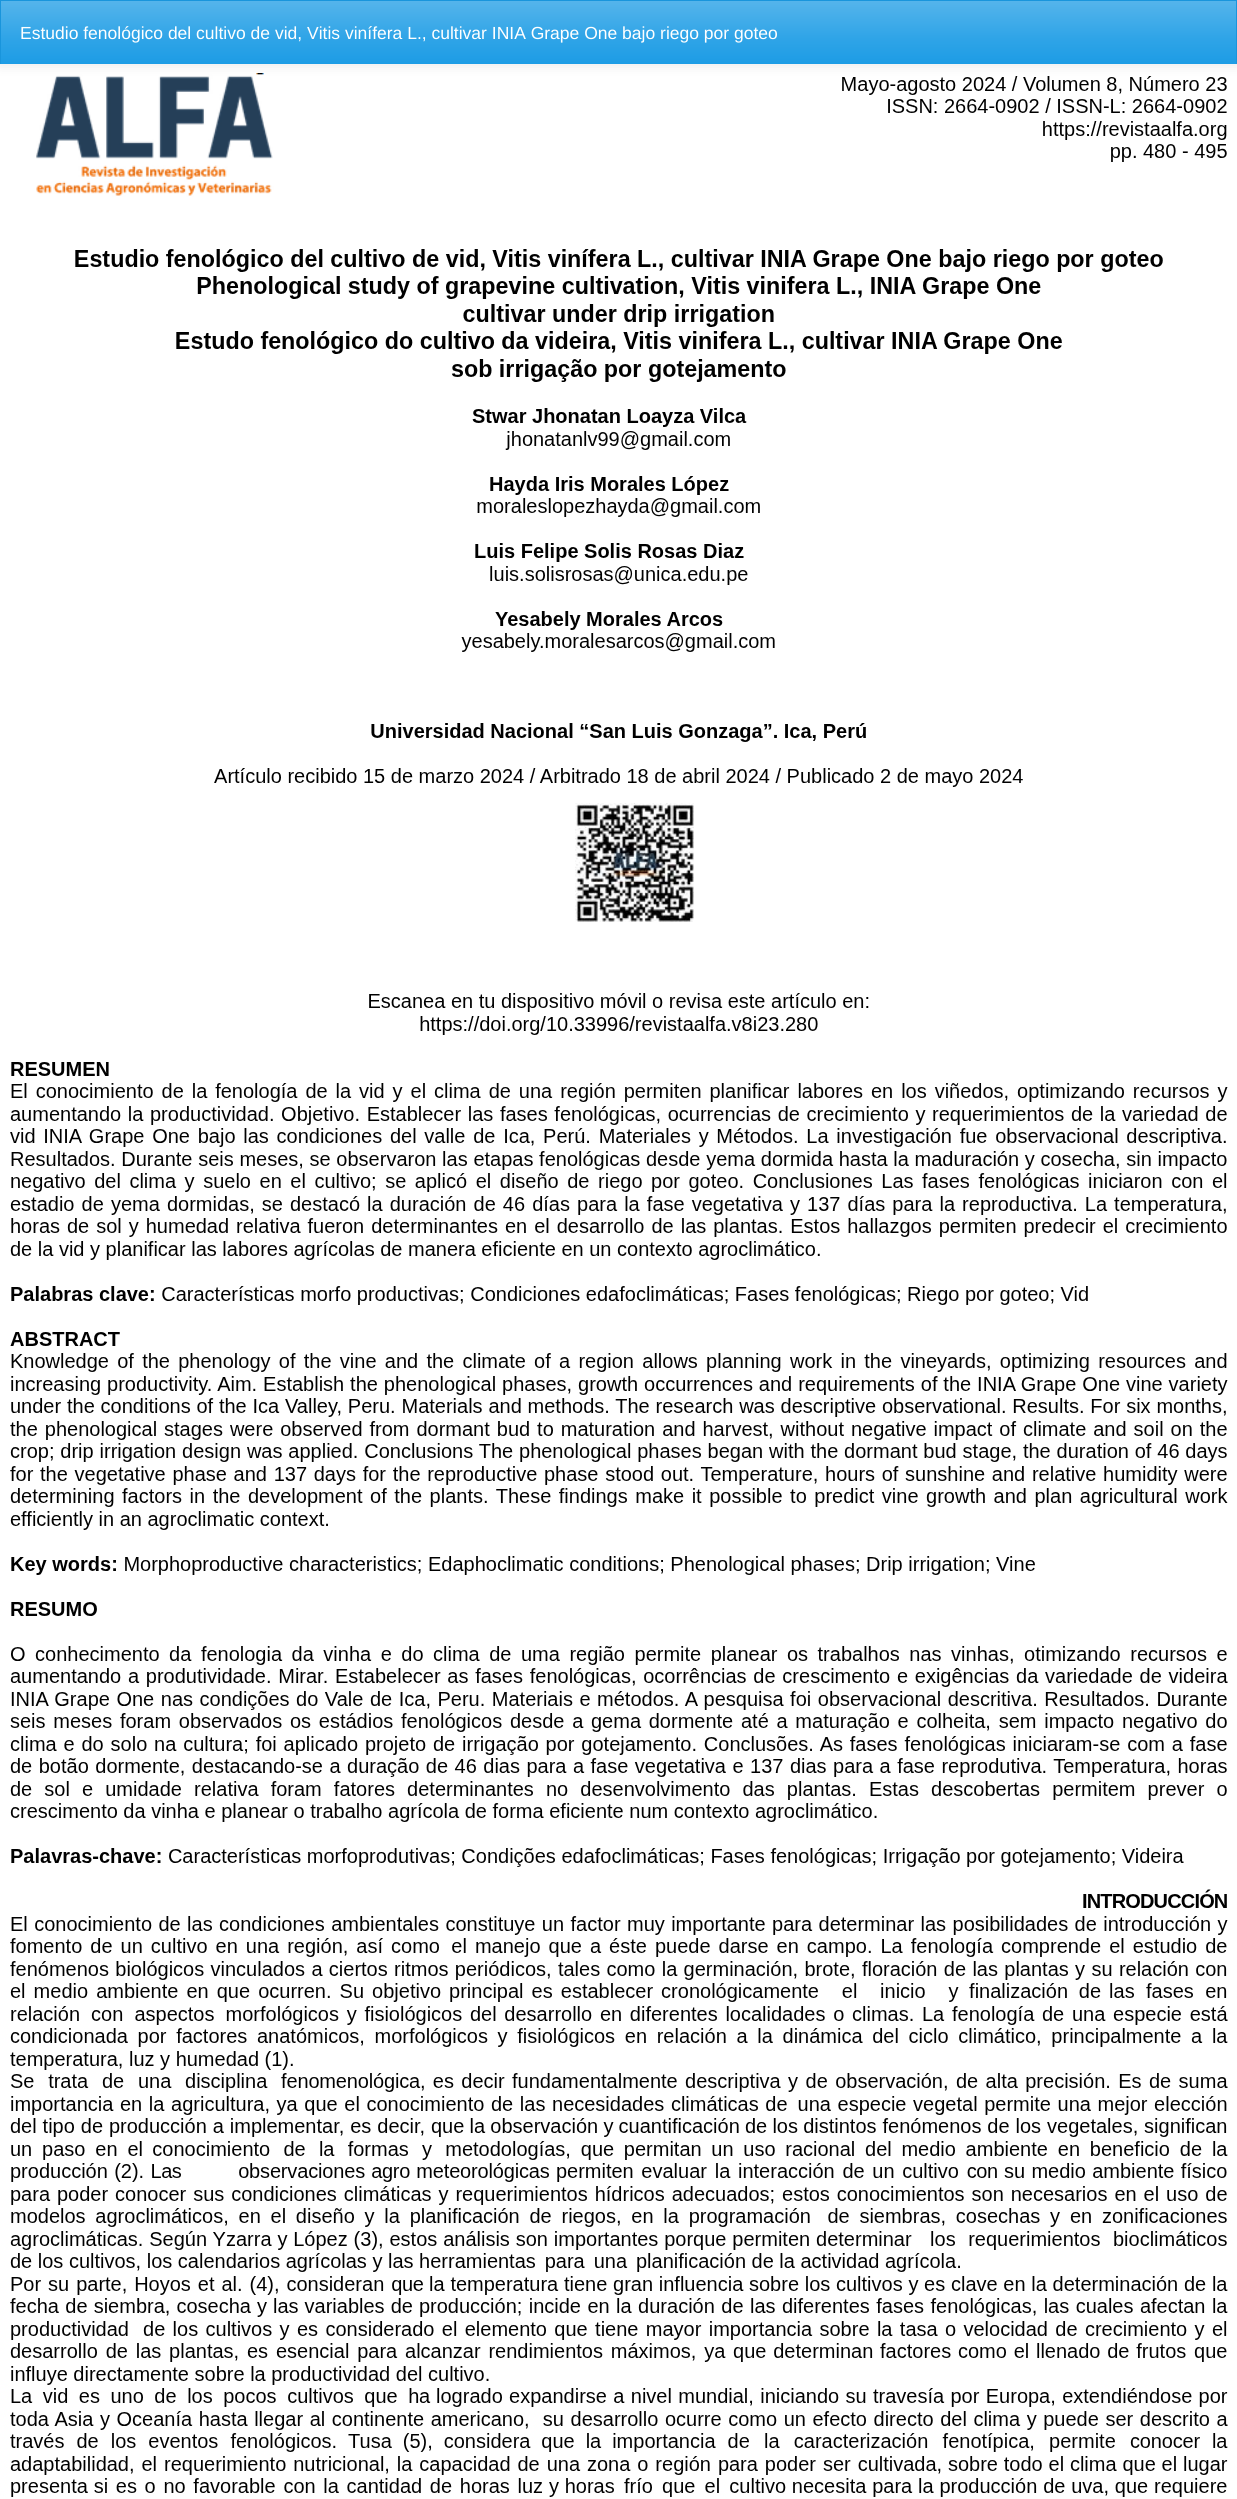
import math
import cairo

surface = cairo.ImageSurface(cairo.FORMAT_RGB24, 1237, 2499)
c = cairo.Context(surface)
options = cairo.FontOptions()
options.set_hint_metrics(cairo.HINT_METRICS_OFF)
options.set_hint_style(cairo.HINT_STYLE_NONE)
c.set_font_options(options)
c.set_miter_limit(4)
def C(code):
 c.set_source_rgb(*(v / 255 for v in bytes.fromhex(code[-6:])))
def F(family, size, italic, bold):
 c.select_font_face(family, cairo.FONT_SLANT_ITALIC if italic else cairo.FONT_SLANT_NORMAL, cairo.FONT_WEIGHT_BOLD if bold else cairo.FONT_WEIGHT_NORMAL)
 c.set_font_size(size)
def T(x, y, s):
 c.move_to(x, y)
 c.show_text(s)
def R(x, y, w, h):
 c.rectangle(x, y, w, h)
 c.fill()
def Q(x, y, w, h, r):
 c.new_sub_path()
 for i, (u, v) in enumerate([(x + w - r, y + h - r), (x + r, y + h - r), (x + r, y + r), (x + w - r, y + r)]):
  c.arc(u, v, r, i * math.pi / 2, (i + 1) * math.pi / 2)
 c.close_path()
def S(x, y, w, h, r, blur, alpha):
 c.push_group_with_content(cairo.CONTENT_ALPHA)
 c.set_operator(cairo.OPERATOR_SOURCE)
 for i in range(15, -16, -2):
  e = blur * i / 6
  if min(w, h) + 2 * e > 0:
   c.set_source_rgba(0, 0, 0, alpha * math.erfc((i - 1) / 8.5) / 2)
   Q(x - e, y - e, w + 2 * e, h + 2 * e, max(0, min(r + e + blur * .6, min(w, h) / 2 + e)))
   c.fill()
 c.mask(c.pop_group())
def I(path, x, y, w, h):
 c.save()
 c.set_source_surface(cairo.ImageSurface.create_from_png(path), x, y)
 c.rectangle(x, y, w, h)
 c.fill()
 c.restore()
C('ffffff')
c.paint()
I('1.png',10,73,1218,2424)
C('000000')
S(0,1,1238,64,0,6,.1)
gradient = cairo.LinearGradient(619,1.2,619,64)
gradient.add_color_stop_rgba(0,0.329,0.706,0.922,1)
gradient.add_color_stop_rgba(.6,0.184,0.643,0.906,1)
gradient.add_color_stop_rgba(1,0.114,0.612,0.898,1)
c.set_source(gradient)
R(1,1,1235,63)
C('1995dc')
R(0,0,1237,1)
R(1236,0,1,64)
R(0,0,1,64)
F('Liberation Sans',17.5,0,0)
C('ffffff')
T(20,39,'Estudio fenológico del cultivo de vid, Vitis vinífera L., cultivar INIA Grape One bajo riego por goteo')
surface.write_to_png('o.png')
